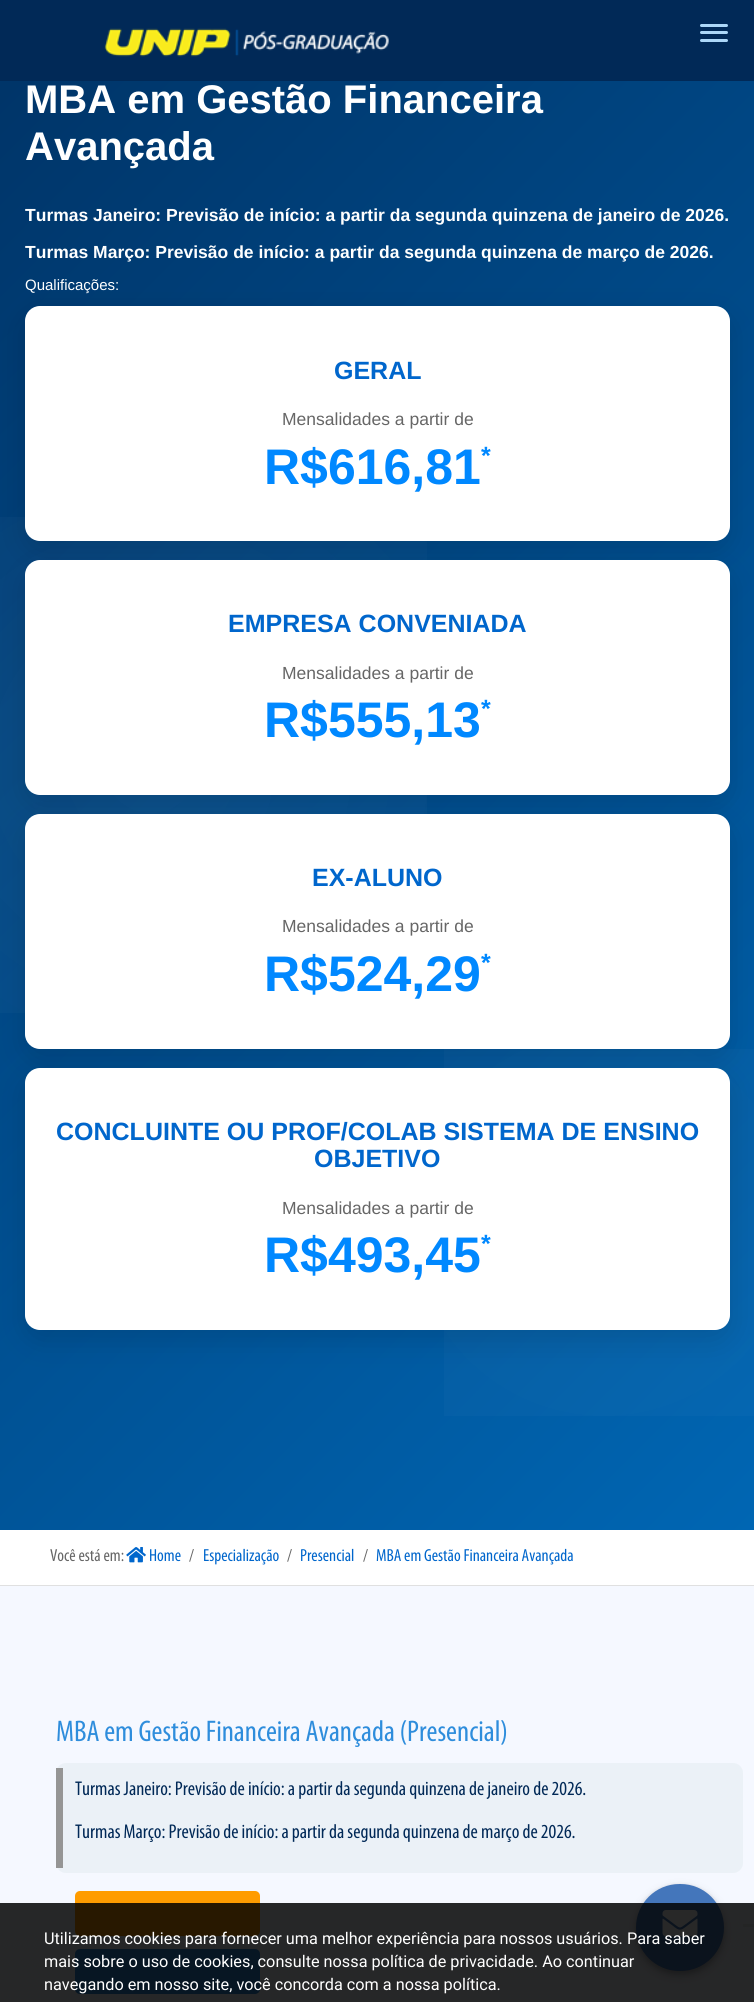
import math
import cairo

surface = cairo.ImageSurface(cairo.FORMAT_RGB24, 754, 2002)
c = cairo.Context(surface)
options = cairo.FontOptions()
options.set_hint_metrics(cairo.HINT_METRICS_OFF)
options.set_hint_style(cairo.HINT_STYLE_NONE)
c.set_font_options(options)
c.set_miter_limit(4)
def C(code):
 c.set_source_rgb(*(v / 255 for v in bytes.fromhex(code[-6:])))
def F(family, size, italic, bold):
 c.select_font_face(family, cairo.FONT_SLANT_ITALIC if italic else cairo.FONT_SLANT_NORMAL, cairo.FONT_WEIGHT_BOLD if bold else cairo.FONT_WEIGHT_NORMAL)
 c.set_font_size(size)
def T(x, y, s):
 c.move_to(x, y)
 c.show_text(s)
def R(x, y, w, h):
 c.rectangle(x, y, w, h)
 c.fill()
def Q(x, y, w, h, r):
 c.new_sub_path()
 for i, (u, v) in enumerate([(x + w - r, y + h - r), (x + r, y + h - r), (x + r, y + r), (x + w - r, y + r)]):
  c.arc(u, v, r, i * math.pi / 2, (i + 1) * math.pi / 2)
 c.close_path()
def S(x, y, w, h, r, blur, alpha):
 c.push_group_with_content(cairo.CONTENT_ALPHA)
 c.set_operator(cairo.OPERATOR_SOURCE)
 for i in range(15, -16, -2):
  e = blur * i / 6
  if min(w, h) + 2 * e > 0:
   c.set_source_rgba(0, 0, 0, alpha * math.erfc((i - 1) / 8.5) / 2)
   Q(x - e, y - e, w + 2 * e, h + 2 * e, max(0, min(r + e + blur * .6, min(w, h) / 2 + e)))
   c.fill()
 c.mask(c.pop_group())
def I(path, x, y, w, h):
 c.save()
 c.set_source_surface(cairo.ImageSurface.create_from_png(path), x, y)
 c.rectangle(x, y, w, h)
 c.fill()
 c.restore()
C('f5f8ff')
c.paint()
C('012957')
R(0,0,754,81)
I('1.png',104,28,285,29)
C('acd7f8')
Q(700,24,28,3,1.5)
c.fill()
Q(700,31,28,3,1.5)
c.fill()
Q(700,39,28,3,1.5)
c.fill()
gradient = cairo.LinearGradient(-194,194,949,1336)
gradient.add_color_stop_rgba(0,0,0.2,0.4,1)
gradient.add_color_stop_rgba(.5,0,0.298,0.549,1)
gradient.add_color_stop_rgba(1,0,0.4,0.702,1)
c.set_source(gradient)
R(0,81,754,1449)
F('Liberation Sans',40,0,1)
C('ffffff')
T(25,113,'MBA em Gestão Financeira')
T(25,160,'Avançada')
F('Liberation Sans',17.5,0,1)
T(25,221,'Turmas Janeiro: Previsão de início: a partir da segunda quinzena de janeiro de 2026.')
T(25,258,'Turmas Março: Previsão de início: a partir da segunda quinzena de março de 2026.')
F('Liberation Sans',15,0,0)
T(25,290,'Qualificações:')
gradient = cairo.RadialGradient(151,765,0,151,765,975)
gradient.add_color_stop_rgba(0,1,1,1,.05)
gradient.add_color_stop_rgba(.5,1,1,1,0)
c.set_source(gradient)
R(0,517,427,496)
C('000000')
S(25,316,705,235,15,15.5,.12)
C('ffffff')
Q(25,306,705,235,15)
c.fill()
F('Liberation Sans',25,0,1)
C('0066cc')
T(334,379,'GERAL')
F('Liberation Sans',17.5,0,0)
C('666666')
T(282,425,'Mensalidades a partir de')
F('Liberation Sans',50,0,1)
C('0088ff')
T(264,484,'R$616,81')
F('Liberation Sans',25,0,1)
T(481,464,'*')
C('000000')
S(25,570,705,235,15,15.5,.12)
C('ffffff')
Q(25,560,705,235,15)
c.fill()
C('0066cc')
T(228,632,'EMPRESA CONVENIADA')
F('Liberation Sans',17.5,0,0)
C('666666')
T(282,679,'Mensalidades a partir de')
F('Liberation Sans',50,0,1)
C('0088ff')
T(264,737,'R$555,13')
F('Liberation Sans',25,0,1)
T(481,717,'*')
gradient = cairo.RadialGradient(604,1224,0,604,1224,1365)
gradient.add_color_stop_rgba(0,1,1,1,.03)
gradient.add_color_stop_rgba(.5,1,1,1,0)
c.set_source(gradient)
R(444,1049,310,367)
C('000000')
S(25,824,705,235,15,15.5,.12)
C('ffffff')
Q(25,814,705,235,15)
c.fill()
C('0066cc')
T(312,886,'EX-ALUNO')
F('Liberation Sans',17.5,0,0)
C('666666')
T(282,932,'Mensalidades a partir de')
F('Liberation Sans',50,0,1)
C('0088ff')
T(264,991,'R$524,29')
F('Liberation Sans',25,0,1)
T(481,971,'*')
C('000000')
S(25,1078,705,262,15,15.5,.12)
C('ffffff')
Q(25,1068,705,262,15)
c.fill()
C('0066cc')
T(56,1140,'CONCLUINTE OU PROF/COLAB SISTEMA DE ENSINO')
T(314,1167,'OBJETIVO')
F('Liberation Sans',17.5,0,0)
C('666666')
T(282,1214,'Mensalidades a partir de')
F('Liberation Sans',50,0,1)
C('0088ff')
T(264,1272,'R$493,45')
F('Liberation Sans',25,0,1)
T(481,1252,'*')
C('ffffff')
R(0,1530,754,55)
C('e0e0e0')
R(0,1585,754,1)
F('Myriad',17.5,0,0)
C('666666')
T(50,1561,'Você está em:')
I('2.png',126,1547,20,16)
C('0066cc')
T(149,1561,'Home')
C('666666')
T(189,1561,'/')
C('0066cc')
T(203,1561,'Especialização')
C('666666')
T(287,1561,'/')
C('0066cc')
T(300,1561,'Presencial')
C('666666')
T(363,1561,'/')
C('0066cc')
T(376,1561,'MBA em Gestão Financeira Avançada')
F('Myriad',30,0,0)
C('2e8ddc')
T(56,1741,'MBA em Gestão Financeira Avançada (Presencial)')
C('ebf1f7')
Q(56,1763,687,110,10)
c.fill()
C('959595')
R(56,1768,7,100)
F('Myriad',20,0,0)
C('012957')
T(75,1795,'Turmas Janeiro: Previsão de início: a partir da segunda quinzena de janeiro de 2026.')
T(75,1838,'Turmas Março: Previsão de início: a partir da segunda quinzena de março de 2026.')
C('ff9c00')
Q(75,1891,185,45,5)
c.fill()
C('e6e9ed')
R(743,1924,11,3)
C('2e8ddc')
Q(75,1949,185,45,5)
c.fill()
C('000000')
S(636,1889,88,87,43.5,5,.2)
S(636,1886,88,88,44,2.5,.15)
C('4476bb')
Q(636,1884,88,87,43.5)
c.fill()
I('3.png',662,1910,36,27)
c.set_source_rgba(0,0,0,0.84)
R(0,1903,754,99)
F('Roboto',16.25,0,0)
C('ffffff')
T(44,1944,'Utilizamos cookies para fornecer uma melhor experiência para nossos usuários. Para saber')
T(44,1967,'mais sobre o uso de cookies, consulte nossa política de privacidade. Ao continuar')
T(44,1990,'navegando em nosso site, você concorda com a nossa política.')
surface.write_to_png('o.png')
